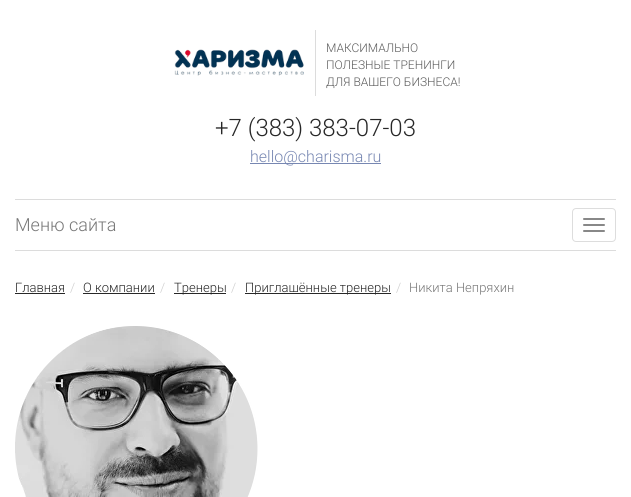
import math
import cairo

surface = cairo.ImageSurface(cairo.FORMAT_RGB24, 631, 497)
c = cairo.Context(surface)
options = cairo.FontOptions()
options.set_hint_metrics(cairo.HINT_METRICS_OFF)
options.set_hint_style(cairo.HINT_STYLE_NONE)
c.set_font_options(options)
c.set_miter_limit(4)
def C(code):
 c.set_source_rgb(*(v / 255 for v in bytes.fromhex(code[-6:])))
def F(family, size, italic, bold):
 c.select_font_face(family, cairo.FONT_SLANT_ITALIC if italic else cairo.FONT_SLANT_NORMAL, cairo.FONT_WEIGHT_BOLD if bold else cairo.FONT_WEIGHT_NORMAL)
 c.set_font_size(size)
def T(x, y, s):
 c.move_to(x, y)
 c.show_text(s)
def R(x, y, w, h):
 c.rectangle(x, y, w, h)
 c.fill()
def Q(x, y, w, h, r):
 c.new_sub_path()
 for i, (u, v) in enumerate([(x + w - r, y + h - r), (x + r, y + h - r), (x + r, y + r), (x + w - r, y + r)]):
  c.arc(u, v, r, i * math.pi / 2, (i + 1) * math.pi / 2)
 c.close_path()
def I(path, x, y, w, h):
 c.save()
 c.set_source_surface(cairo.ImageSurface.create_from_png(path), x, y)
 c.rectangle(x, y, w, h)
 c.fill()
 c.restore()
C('ffffff')
c.paint()
C('dcdcdc')
R(315,30,1,66)
I('1.png',174,49,130,27)
F('Roboto Light',12,0,0)
C('5b5b5b')
T(326,52,'МАКСИМАЛЬНО')
T(326,69,'ПОЛЕЗНЫЕ ТРЕНИНГИ')
T(326,86,'ДЛЯ ВАШЕГО БИЗНЕСА!')
F('Roboto Light',24,0,0)
C('272727')
T(215,136,'+7 (383) 383-07-03')
C('7787b2')
R(250,163,131,1)
F('Roboto Light',16,0,0)
T(250,162,'hello@charisma.ru')
C('dcdcdc')
R(15,199,601,1)
R(15,250,601,1)
F('Roboto Light',18,0,0)
C('777777')
T(15,231,'Меню сайта')
Q(572.5,208.5,43,33,3.5)
C('dddddd')
c.set_line_width(1)
c.stroke()
C('888888')
Q(583,218,22,2,1)
c.fill()
Q(583,224,22,2,1)
c.fill()
Q(583,230,22,2,1)
c.fill()
F('Roboto Light',13,0,0)
C('272727')
T(15,292,'Главная')
R(15,293,50,1)
C('cccccc')
T(70,292,'/')
C('272727')
T(83,292,'О компании')
R(83,293,72,1)
C('cccccc')
T(160,292,'/')
C('272727')
R(174,293,52,1)
T(174,292,'Тренеры')
C('cccccc')
T(231,292,'/')
C('272727')
R(245,293,146,1)
T(245,292,'Приглашённые тренеры')
C('cccccc')
T(396,292,'/')
C('777777')
T(409,292,'Никита Непряхин')
I('2.png',15,326,243,171)
surface.write_to_png('o.png')
